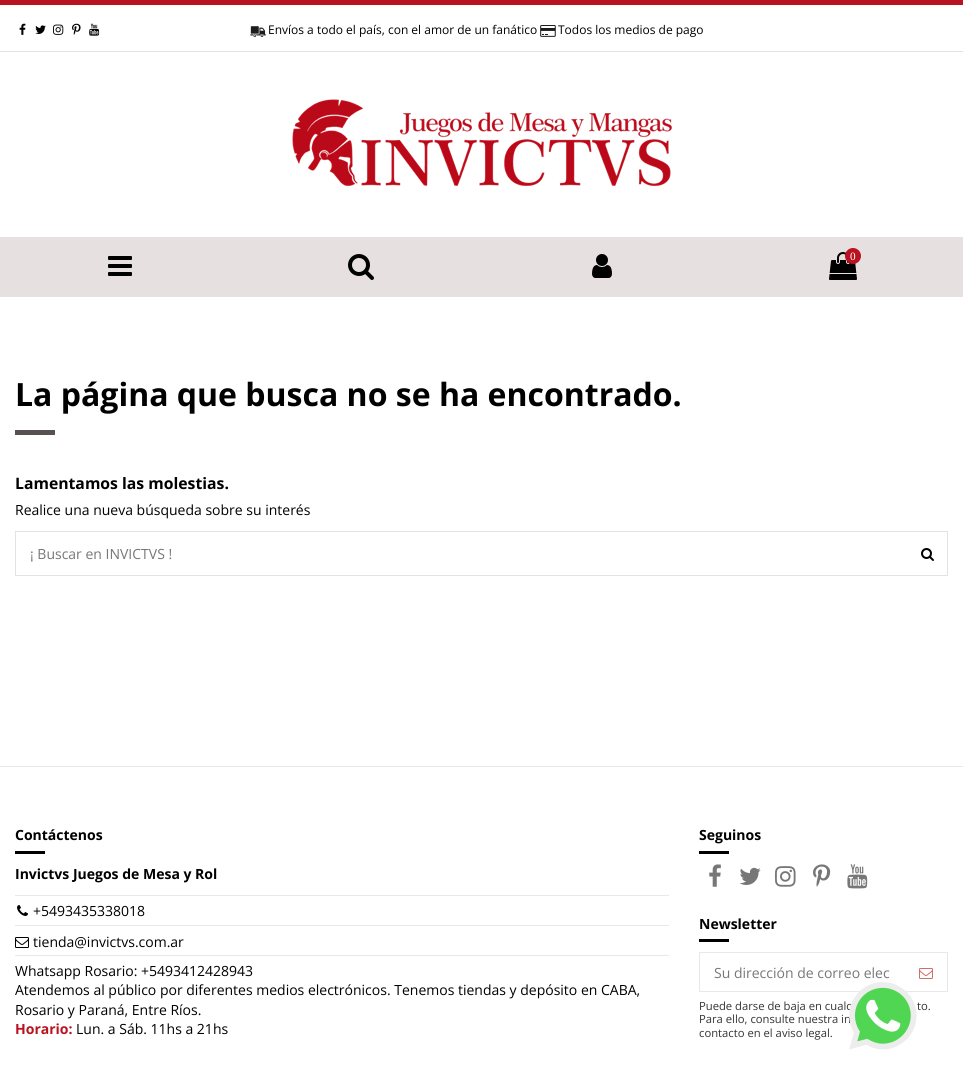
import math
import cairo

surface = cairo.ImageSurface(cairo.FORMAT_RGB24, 963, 1070)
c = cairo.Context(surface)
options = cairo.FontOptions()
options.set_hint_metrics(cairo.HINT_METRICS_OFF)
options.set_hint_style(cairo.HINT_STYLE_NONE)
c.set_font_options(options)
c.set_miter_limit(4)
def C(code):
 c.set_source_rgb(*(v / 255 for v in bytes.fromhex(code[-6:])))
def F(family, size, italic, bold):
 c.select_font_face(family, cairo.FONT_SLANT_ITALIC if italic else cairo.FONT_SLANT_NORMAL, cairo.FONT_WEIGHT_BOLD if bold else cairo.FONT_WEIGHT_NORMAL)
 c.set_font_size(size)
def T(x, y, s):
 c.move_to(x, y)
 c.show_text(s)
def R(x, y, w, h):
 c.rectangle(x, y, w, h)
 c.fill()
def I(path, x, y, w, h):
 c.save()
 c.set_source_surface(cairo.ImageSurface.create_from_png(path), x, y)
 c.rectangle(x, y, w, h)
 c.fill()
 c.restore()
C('ffffff')
c.paint()
C('b91220')
R(0,0,963,5)
C('e3e3e3')
R(0,51,963,1)
I('1.png',19,23,7,12)
I('2.png',35,25,11,9)
I('3.png',53,24,11,11)
I('4.png',72,23,9,12)
I('5.png',89,23,11,13)
I('6.png',250,26,16,12)
F('Open Sans',12,0,0)
C('000000')
T(268,34,'Envíos a todo el país, con el amor de un fanático')
I('7.png',540,25,16,12)
T(558,34,'Todos los medios de pago')
C('e3e3e3')
R(0,296,963,1)
I('8.png',292,99,380,88)
C('e6e0e1')
R(0,237,963,59)
I('9.png',108,256,24,20)
I('10.png',348,254,26,26)
I('11.png',592,254,20,24)
I('12.png',829,252,28,28)
C('b91220')
c.arc(853,256,8,0,2 * math.pi)
c.fill()
F('Liberation Serif',11.25,0,0)
C('ffffff')
T(850,260,'0')
F('Open Sans',32,0,1)
C('000000')
T(15,406,'La página que busca no se ha encontrado.')
C('595050')
R(15,430,40,5)
F('Open Sans',15.75,0,1)
C('000000')
T(15,489,'Lamentamos las molestias.')
F('Open Sans',14,0,0)
T(15,515,'Realice una nueva búsqueda sobre su interés')
c.rectangle(15.5,531.5,932,44)
C('e3e3e3')
c.set_line_width(1)
c.stroke()
C('777777')
T(30,559,'¡ Buscar en INVICTVS !')
I('13.png',921,548,13,13)
C('e8e8e8')
R(0,766,963,1)
F('Open Sans',14,0,1)
C('000000')
T(15,840,'Contáctenos')
R(15,851,30,3)
T(15,879,'Invictvs Juegos de Mesa y Rol')
C('e8e8e8')
R(15,895,654,1)
I('14.png',17,905,11,11)
F('Open Sans',14,0,0)
C('000000')
T(33,916,'+5493435338018')
C('e8e8e8')
R(15,925,654,1)
I('15.png',15,937,14,11)
C('000000')
T(33,947,'tienda@invictvs.com.ar')
C('e8e8e8')
R(15,955,654,1)
C('000000')
T(15,976,'Whatsapp Rosario: +5493412428943')
T(15,995,'Atendemos al público por diferentes medios electrónicos. Tenemos tiendas y depósito en CABA,')
T(15,1015,'Rosario y Paraná, Entre Ríos.')
F('Open Sans',14,0,1)
C('b91220')
T(15,1034,'Horario:')
F('Open Sans',14,0,0)
C('000000')
T(76,1034,'Lun. a Sáb. 11hs a 21hs')
F('Open Sans',14,0,1)
T(699,840,'Seguinos')
R(699,851,30,3)
I('16.png',709,864,12,23)
I('17.png',739,867,22,18)
I('18.png',775,866,21,21)
I('19.png',813,864,18,23)
I('20.png',847,864,21,25)
T(699,929,'Newsletter')
R(699,939,30,3)
c.rectangle(699.5,952.5,248,39)
C('e8e8e8')
c.stroke()
F('Open Sans',14,0,0)
C('777777')
T(714,978,'Su dirección de correo elec')
I('21.png',919,968,14,11)
F('Open Sans',11.25,0,0)
C('333333')
T(699,1010,'Puede darse de baja en cualq')
T(917,1010,'to.')
T(699,1023,'Para ello, consulte nuestra in')
T(699,1037,'contacto en el aviso legal.')
I('22.png',849,982,68,68)
surface.write_to_png('o.png')
